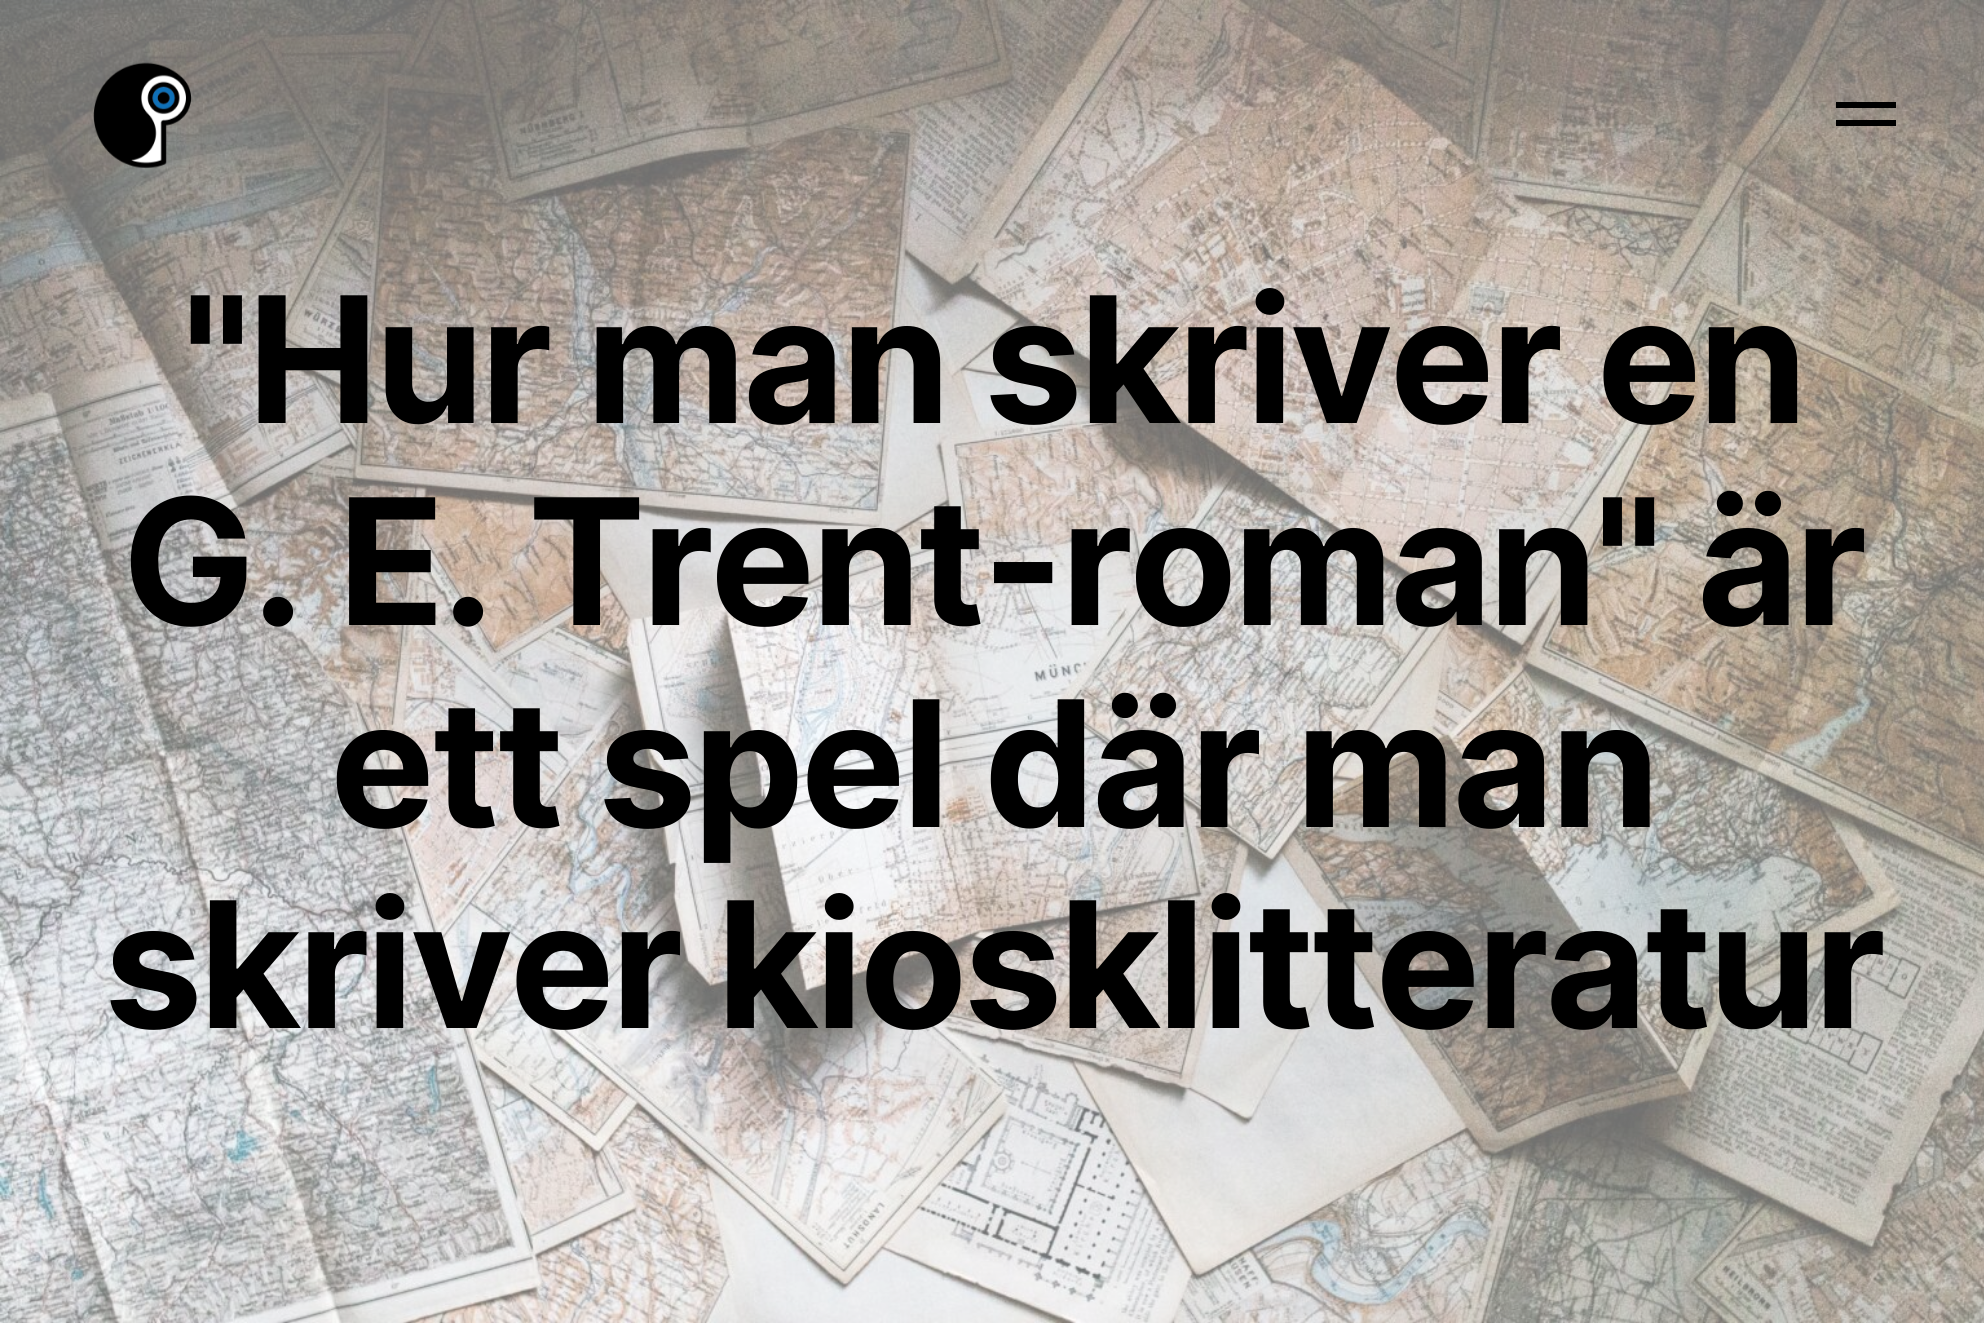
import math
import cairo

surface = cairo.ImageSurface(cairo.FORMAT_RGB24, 1984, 1323)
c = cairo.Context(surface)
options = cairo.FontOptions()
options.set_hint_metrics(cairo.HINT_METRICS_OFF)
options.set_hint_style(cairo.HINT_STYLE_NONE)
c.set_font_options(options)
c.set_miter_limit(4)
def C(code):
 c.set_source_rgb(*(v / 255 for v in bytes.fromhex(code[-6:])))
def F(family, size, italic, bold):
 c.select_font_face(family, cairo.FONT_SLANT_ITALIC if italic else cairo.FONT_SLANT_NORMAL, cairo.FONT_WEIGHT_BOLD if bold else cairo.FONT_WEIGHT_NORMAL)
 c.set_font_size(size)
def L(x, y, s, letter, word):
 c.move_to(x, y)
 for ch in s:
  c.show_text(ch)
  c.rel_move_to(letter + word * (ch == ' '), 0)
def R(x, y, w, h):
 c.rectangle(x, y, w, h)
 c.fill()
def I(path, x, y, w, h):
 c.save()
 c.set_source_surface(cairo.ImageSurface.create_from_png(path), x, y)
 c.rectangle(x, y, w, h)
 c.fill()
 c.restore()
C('ffffff')
c.paint()
I('2.png',0,0,1984,1323)
I('1.png',93,62,99,106)
C('000000')
R(1836,102,60,6)
R(1836,120,60,6)
F('Inter',175.6,0,1)
L(182,423,'"Hur man skriver en',-3.5,0)
L(122,625,'G. E. Trent-roman" är',-3.5,0)
L(330,827,'ett spel där man',-3.5,0)
L(104,1028,'skriver kiosklitteratur',-3.5,0)
surface.write_to_png('o.png')
